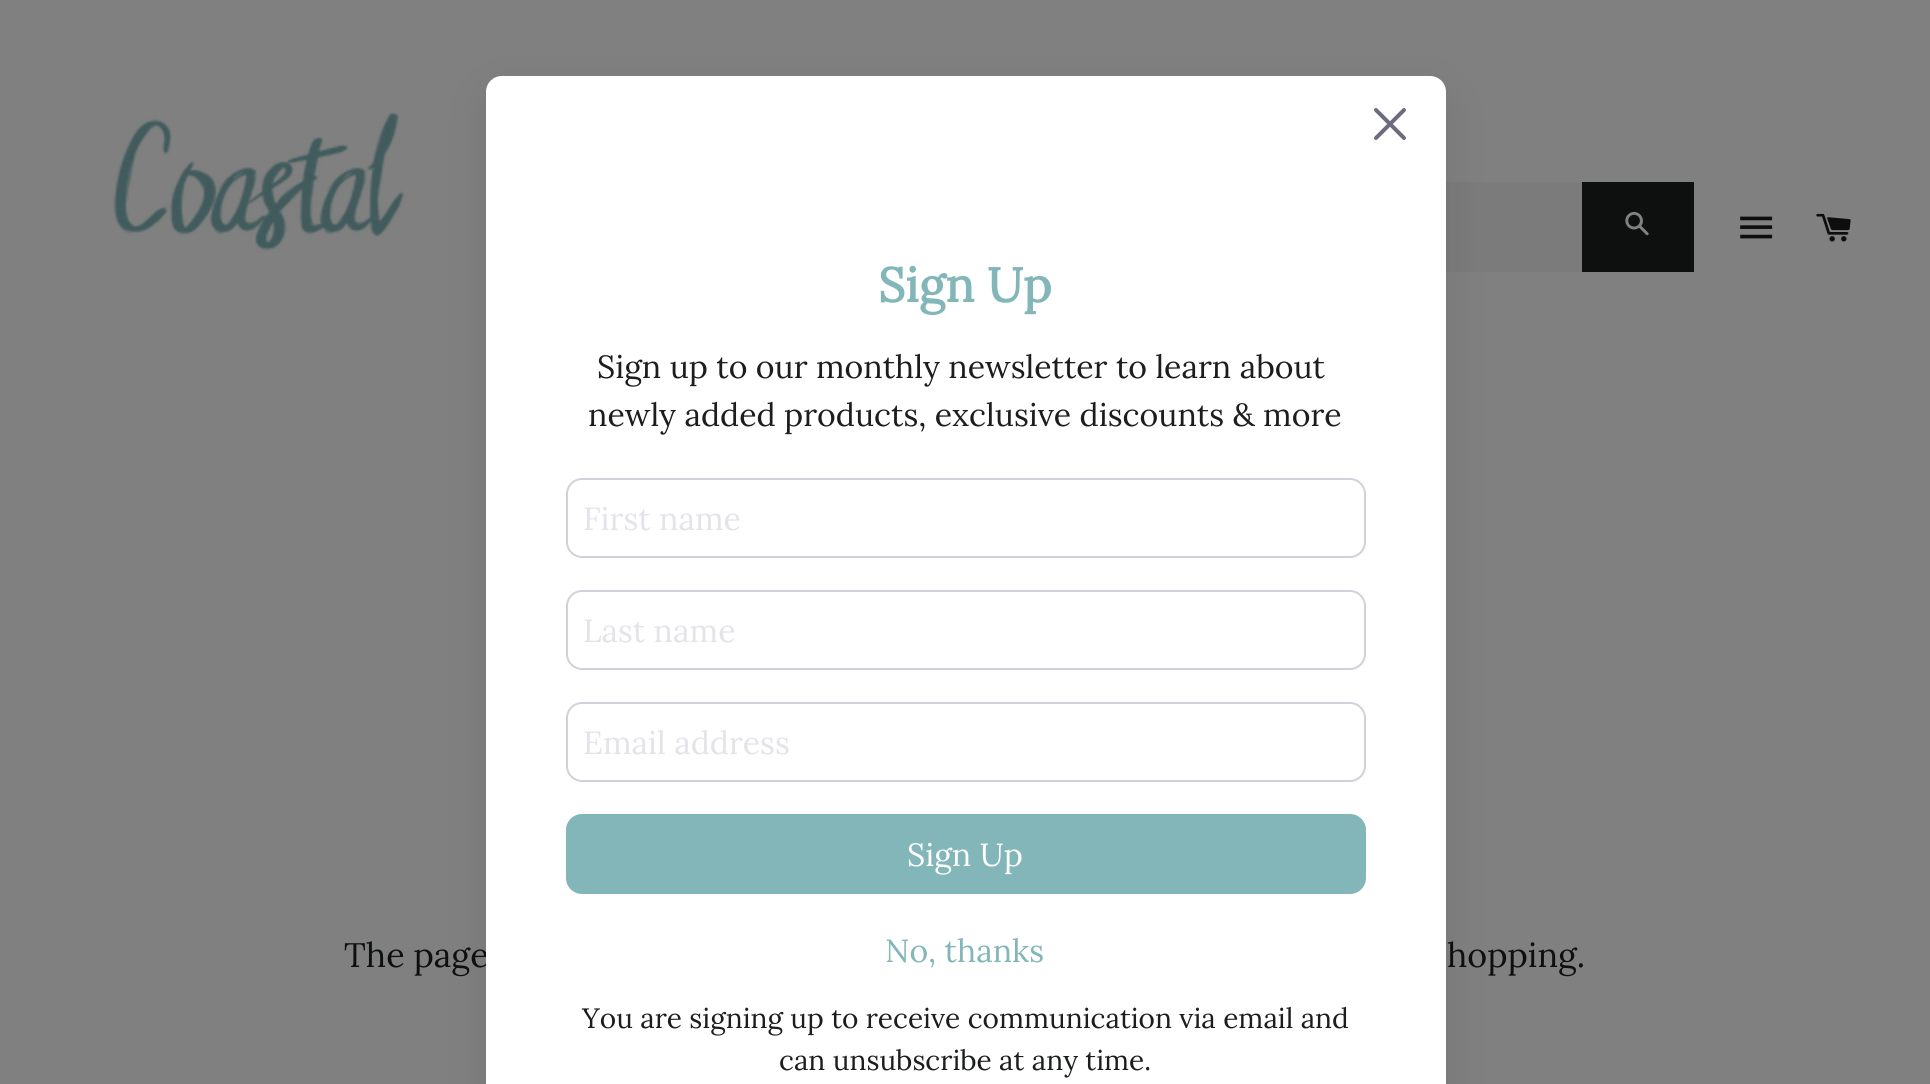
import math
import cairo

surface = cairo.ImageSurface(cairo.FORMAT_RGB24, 1930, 1084)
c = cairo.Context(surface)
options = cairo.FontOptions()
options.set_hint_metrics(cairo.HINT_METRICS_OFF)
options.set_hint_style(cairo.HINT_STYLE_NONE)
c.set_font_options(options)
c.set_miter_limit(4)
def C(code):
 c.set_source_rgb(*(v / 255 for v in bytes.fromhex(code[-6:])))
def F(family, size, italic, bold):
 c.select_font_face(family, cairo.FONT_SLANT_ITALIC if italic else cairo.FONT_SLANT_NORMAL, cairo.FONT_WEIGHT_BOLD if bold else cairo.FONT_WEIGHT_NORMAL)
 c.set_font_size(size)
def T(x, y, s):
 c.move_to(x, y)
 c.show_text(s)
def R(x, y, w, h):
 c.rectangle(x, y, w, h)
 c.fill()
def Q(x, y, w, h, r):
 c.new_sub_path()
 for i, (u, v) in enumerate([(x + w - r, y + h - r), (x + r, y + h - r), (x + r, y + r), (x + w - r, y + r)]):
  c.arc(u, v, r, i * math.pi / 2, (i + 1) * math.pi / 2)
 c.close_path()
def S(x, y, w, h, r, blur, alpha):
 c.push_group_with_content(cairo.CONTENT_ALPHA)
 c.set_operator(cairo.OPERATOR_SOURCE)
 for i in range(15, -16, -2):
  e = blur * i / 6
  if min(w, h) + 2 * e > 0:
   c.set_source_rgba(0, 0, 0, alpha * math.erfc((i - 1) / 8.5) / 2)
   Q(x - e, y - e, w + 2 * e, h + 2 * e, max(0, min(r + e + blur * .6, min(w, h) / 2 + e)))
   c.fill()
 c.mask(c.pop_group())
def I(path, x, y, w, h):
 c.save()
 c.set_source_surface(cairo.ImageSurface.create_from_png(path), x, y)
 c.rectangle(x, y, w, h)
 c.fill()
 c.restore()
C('808080')
c.paint()
C('7b7b7b')
R(1446,182,136,90)
C('121127')
S(486,92,960,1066,16,20,.1)
F('Lora',34,0,0)
C('0e0f0f')
T(344,967,'The page')
C('ffffff')
c.new_path()
c.move_to(502,76)
c.line_to(1430,76)
c.curve_to(1439,76,1446,83,1446,92)
c.line_to(1446,1084)
c.line_to(486,1084)
c.line_to(486,92)
c.curve_to(486,83,493,76,502,76)
c.close_path()
c.fill()
I('1.png',1374,108,32,32)
F('Lora',48,0,1)
C('82b6b9')
T(878,302,'Sign Up')
F('Lora',32,0,0)
C('1c1d1d')
T(597,378,'Sign up to our monthly newsletter to learn about')
T(588,426,'newly added products, exclusive discounts & more')
Q(567,479,798,78,15)
C('d1d1db')
c.stroke()
C('e3e3e9')
T(583,530,'First name')
Q(567,591,798,78,15)
C('d1d1db')
c.stroke()
C('e3e3e9')
T(583,642,'Last name')
Q(567,703,798,78,15)
C('d1d1db')
c.stroke()
C('e3e3e9')
T(583,754,'Email address')
C('82b6b9')
Q(566,814,800,80,16)
c.fill()
C('ffffff')
T(907,866,'Sign Up')
C('82b6b9')
T(885,962,'No, thanks')
F('Lora',28,0,0)
C('1c1d1d')
T(582,1028,'You are signing up to receive communication via email and')
T(779,1070,'can unsubscribe at any time.')
I('2.png',113,111,292,140)
C('0e0f0f')
R(1582,182,112,90)
I('3.png',1625,211,24,25)
I('4.png',1740,216,33,23)
I('5.png',1816,213,35,29)
F('Lora',34,0,0)
T(1447,967,'hopping.')
surface.write_to_png('o.png')
